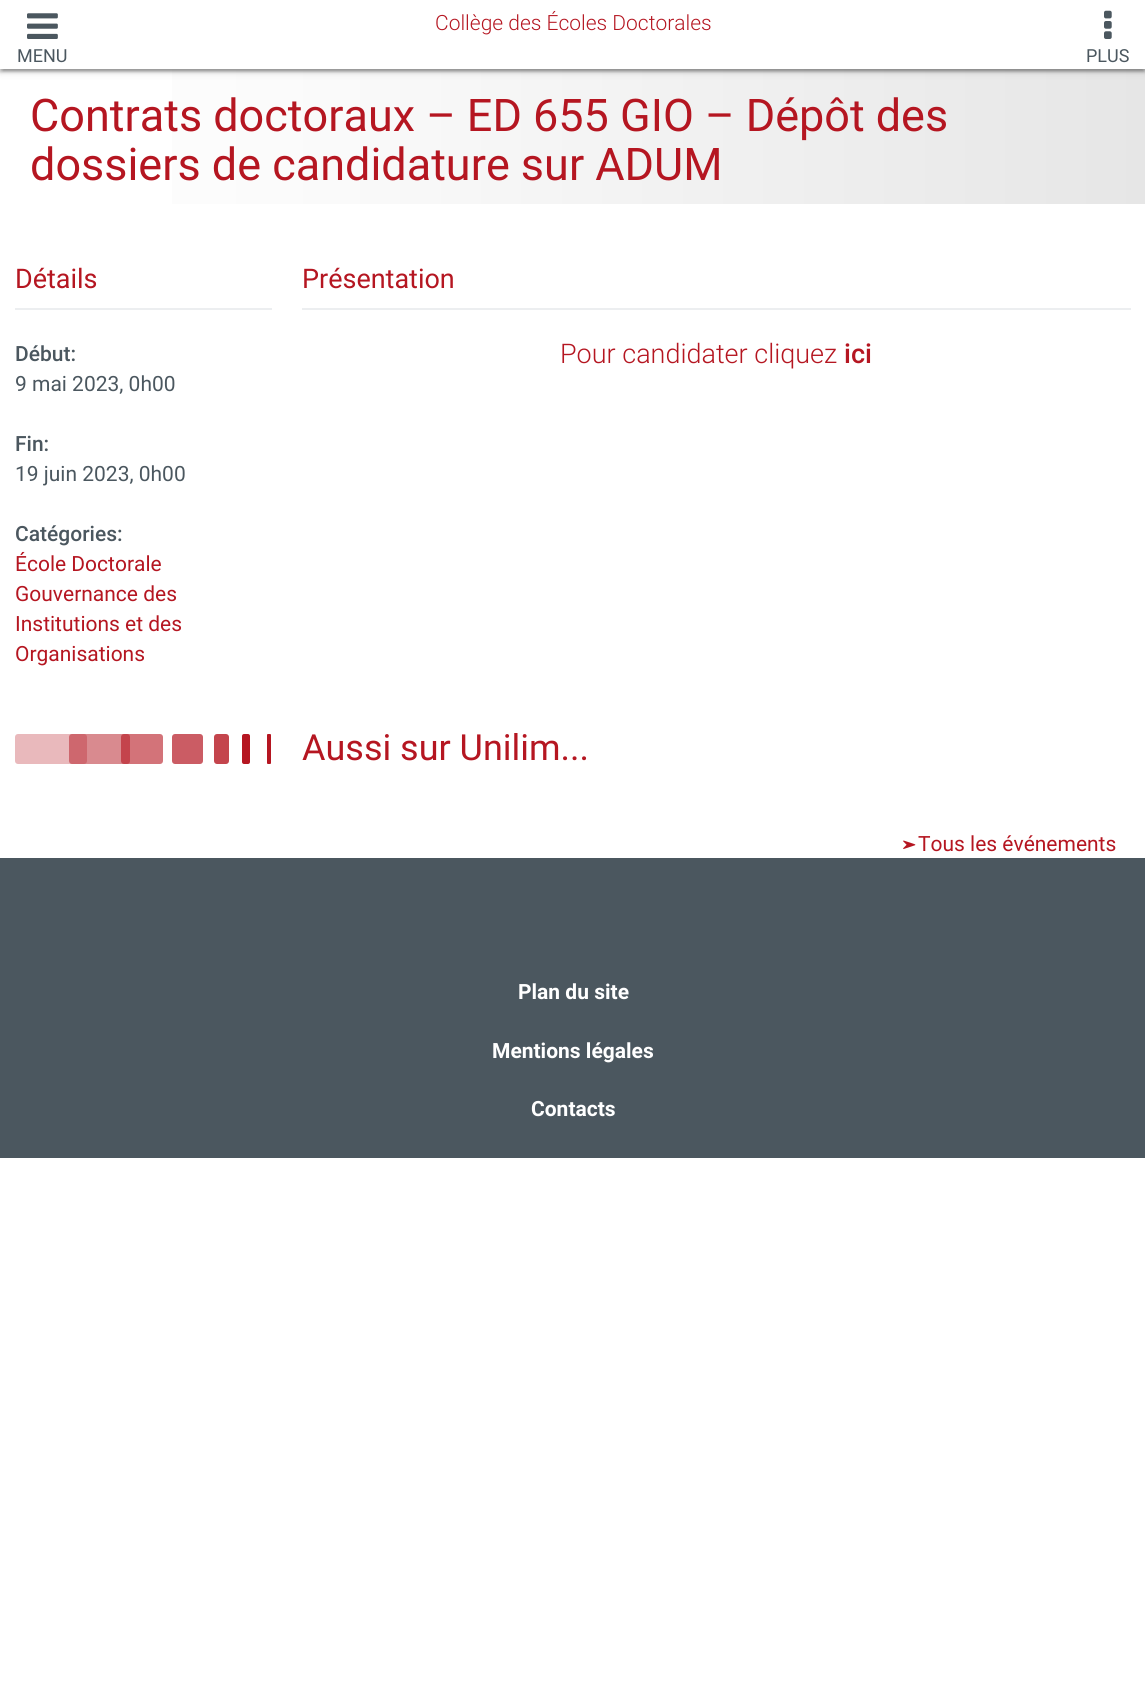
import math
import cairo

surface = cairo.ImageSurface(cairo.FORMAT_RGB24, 1145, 1684)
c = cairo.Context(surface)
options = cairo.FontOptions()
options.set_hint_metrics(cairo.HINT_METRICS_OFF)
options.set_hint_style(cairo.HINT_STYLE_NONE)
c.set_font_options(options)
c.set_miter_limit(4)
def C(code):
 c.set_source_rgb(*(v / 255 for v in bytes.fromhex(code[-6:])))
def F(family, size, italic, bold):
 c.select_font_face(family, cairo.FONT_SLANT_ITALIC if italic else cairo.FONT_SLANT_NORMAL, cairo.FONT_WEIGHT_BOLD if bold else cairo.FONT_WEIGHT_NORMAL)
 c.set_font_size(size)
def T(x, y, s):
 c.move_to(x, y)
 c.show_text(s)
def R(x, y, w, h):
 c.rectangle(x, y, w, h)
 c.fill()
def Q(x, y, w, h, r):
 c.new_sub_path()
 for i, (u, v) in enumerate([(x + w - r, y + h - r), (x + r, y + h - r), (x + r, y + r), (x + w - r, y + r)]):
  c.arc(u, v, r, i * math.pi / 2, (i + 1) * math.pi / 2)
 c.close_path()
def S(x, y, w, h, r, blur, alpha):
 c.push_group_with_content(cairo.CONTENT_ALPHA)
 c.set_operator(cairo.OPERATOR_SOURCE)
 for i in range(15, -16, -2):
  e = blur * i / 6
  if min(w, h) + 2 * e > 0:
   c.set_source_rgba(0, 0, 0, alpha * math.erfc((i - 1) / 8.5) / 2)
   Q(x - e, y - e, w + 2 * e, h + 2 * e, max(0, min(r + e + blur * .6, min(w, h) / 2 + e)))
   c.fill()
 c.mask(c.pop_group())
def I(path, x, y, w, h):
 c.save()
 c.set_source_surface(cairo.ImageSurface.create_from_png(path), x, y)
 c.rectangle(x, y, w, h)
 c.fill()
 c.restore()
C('ffffff')
c.paint()
gradient = cairo.LinearGradient(0,132,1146,132)
gradient.add_color_stop_rgba(0,1,1,1,1)
gradient.add_color_stop_rgba(.3,0.98,0.98,0.98,1)
gradient.add_color_stop_rgba(1,0.902,0.902,0.902,1)
c.set_source(gradient)
R(172,69,973,135)
C('000000')
S(0,2,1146,69,0,4,.2)
S(3,8,1140,63,0,1,.14)
S(0,3,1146,69,0,1.5,.2)
C('ffffff')
R(0,0,1145,69)
F('Roboto Light',21,0,0)
C('b51621')
T(435,30,'Collège des Écoles Doctorales')
I('1.png',27,13,31,26)
F('Roboto',18,0,0)
C('4b575f')
T(17,62,'MENU')
I('2.png',1104,10,8,29)
T(1086,62,'PLUS')
F('Roboto',45,0,0)
C('b51621')
T(30,131,'Contrats doctoraux – ED 655 GIO – Dépôt des')
T(30,180,'dossiers de candidature sur ADUM')
C('eceef0')
R(15,308,257,2)
F('Roboto',27,0,0)
C('b51621')
T(15,288,'Détails')
F('Roboto Medium',21,0,0)
C('4b575f')
T(15,361,'Début:')
F('Roboto',21,0,0)
T(15,391,'9 mai 2023, 0h00')
F('Roboto Medium',21,0,0)
T(15,451,'Fin:')
F('Roboto',21,0,0)
T(15,481,'19 juin 2023, 0h00')
F('Roboto Medium',21,0,0)
T(15,541,'Catégories:')
F('Roboto',21,0,0)
C('b51621')
T(15,571,'École Doctorale')
T(15,601,'Gouvernance des')
T(15,631,'Institutions et des')
T(15,661,'Organisations')
C('eceef0')
R(302,308,829,2)
F('Roboto',27,0,0)
C('b51621')
T(302,288,'Présentation')
F('Roboto Light',27,0,0)
T(560,363,'Pour candidater cliquez')
F('Roboto Medium',27,0,0)
T(844,363,'ici')
C('e9b9bc')
Q(15,734,72,30,3)
c.fill()
c.set_source_rgba(0.71,0.086,0.129,0.5)
Q(69,734,61,30,3)
c.fill()
c.set_source_rgba(0.71,0.086,0.129,0.6)
Q(121,734,42,30,3)
c.fill()
C('cb5c64')
Q(172,734,31,30,3)
c.fill()
C('c4454d')
Q(214,734,15,30,3)
c.fill()
C('b51621')
Q(242,734,8,30,2)
c.fill()
Q(267,734,4,30,1)
c.fill()
F('Roboto',36,0,0)
T(302,760,'Aussi sur Unilim...')
I('3.png',903,840,13,9)
F('Roboto',21,0,0)
T(918,851,'Tous les événements')
C('4b575f')
R(0,858,1145,300)
F('Roboto',21,0,1)
C('ffffff')
T(518,999,'Plan du site')
T(492,1058,'Mentions légales')
T(531,1116,'Contacts')
surface.write_to_png('o.png')
